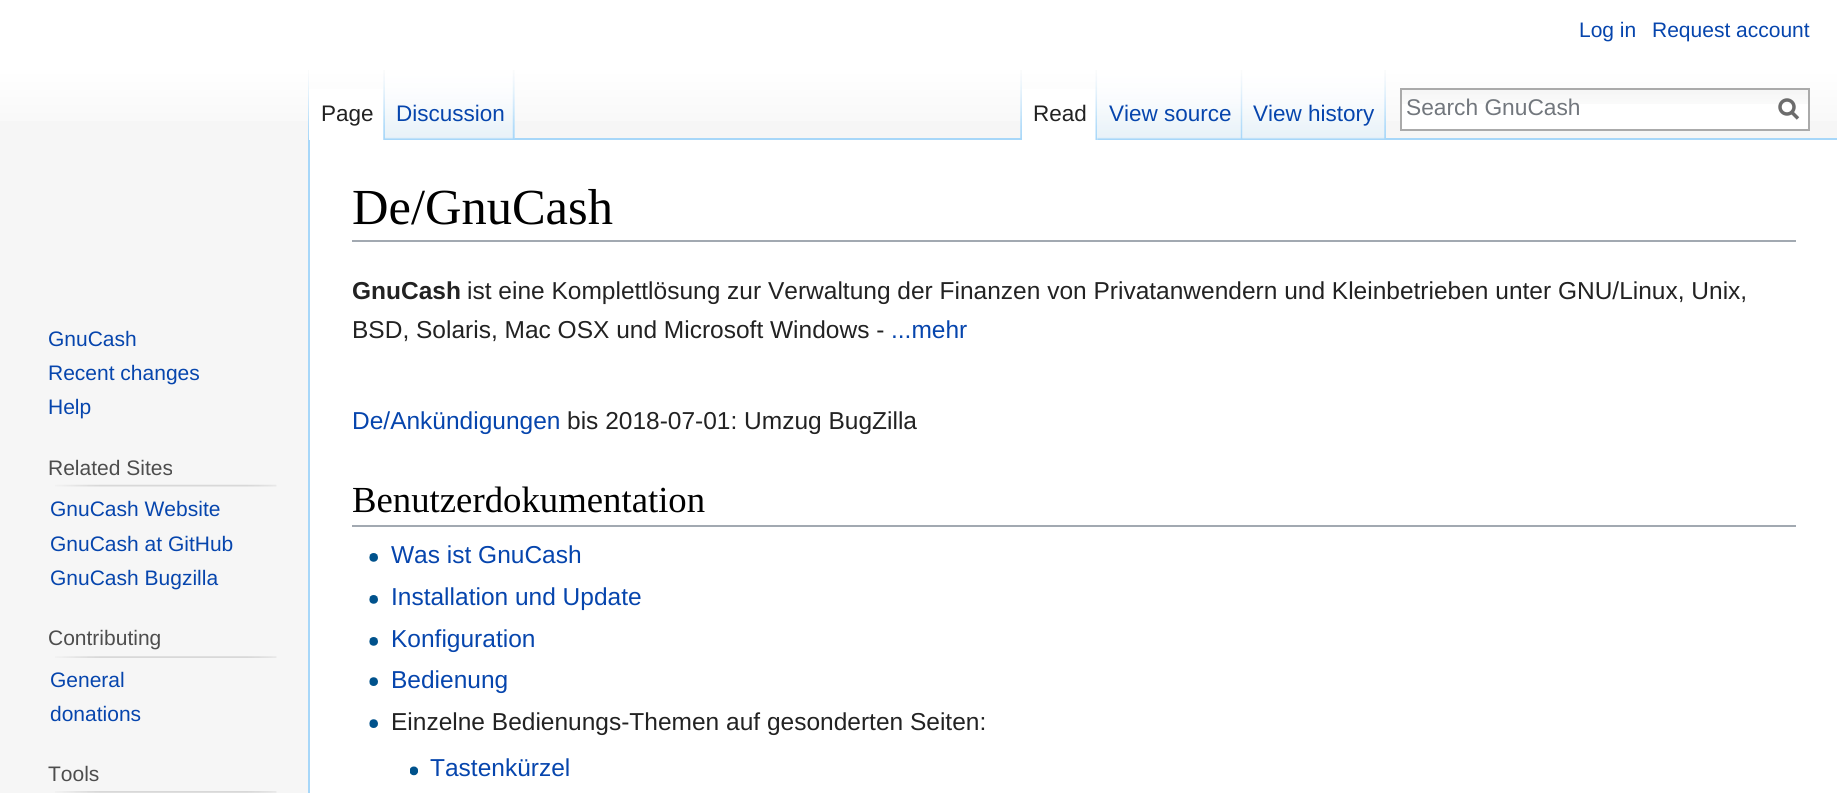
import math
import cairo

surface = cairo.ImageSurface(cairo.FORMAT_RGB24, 1837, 793)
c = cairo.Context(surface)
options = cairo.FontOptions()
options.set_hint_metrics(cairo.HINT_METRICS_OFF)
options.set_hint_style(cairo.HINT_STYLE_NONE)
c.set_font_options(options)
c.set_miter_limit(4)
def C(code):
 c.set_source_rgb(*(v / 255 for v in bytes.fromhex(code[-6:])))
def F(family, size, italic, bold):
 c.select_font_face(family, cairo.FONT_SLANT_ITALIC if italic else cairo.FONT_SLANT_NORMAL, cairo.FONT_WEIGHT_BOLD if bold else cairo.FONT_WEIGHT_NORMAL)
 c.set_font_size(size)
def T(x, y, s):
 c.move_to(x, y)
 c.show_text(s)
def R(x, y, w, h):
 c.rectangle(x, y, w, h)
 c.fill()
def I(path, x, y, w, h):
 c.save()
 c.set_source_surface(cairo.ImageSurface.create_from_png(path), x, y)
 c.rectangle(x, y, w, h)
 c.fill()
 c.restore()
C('f6f6f6')
c.paint()
gradient = cairo.LinearGradient(919,0,919,140)
gradient.add_color_stop_rgba(.5,1,1,1,1)
gradient.add_color_stop_rgba(1,0.965,0.965,0.965,1)
c.set_source(gradient)
R(0,0,1837,121)
F('Liberation Sans',21,0,0)
C('0645ad')
T(1579,37,'Log in')
T(1652,37,'Request account')
I('1.png',308,70,1,68)
I('2.png',514,70,1,68)
C('a7d7f9')
R(308,138,2,655)
C('ffffff')
R(309,89,75,51)
I('3.png',383,70,2,70)
F('Liberation Sans',22.5,0,0)
C('222222')
T(321,121,'Page')
C('a7d7f9')
R(514,138,1323,2)
I('4.png',385,70,130,70)
I('5.png',512,70,3,70)
C('0645ad')
T(396,121,'Discussion')
I('6.png',1020,70,2,68)
C('ffffff')
R(1022,89,76,51)
I('7.png',1095,70,3,70)
C('222222')
T(1033,121,'Read')
I('8.png',1097,70,146,70)
I('5.png',1240,70,3,70)
C('0645ad')
T(1109,121,'View source')
I('9.png',1242,70,144,70)
I('10.png',1384,70,2,69)
T(1253,121,'View history')
C('ffffff')
R(1402,104,406,25)
I('11.png',1402,90,406,14)
c.rectangle(1401,89,408,41)
C('aaaaaa')
c.stroke()
F('Liberation Sans',22.75,0,0)
C('72777d')
T(1406,115,'Search GnuCash')
c.new_path()
c.move_to(1798,118.5)
c.line_to(1791,111.5)
C('6c6c6c')
c.set_line_width(3.5)
c.stroke()
c.arc(1787,107,7,0,2 * math.pi)
c.stroke()
F('Liberation Sans',21,0,0)
C('0645ad')
T(48,346,'GnuCash')
T(48,380,'Recent changes')
T(48,414,'Help')
C('4d4d4d')
T(48,475,'Related Sites')
I('12.png',55,484,222,3)
C('0645ad')
T(50,516,'GnuCash Website')
T(50,551,'GnuCash at GitHub')
T(50,585,'GnuCash Bugzilla')
C('4d4d4d')
T(48,645,'Contributing')
I('13.png',55,656,222,2)
C('0645ad')
T(50,687,'General')
T(50,721,'donations')
C('4d4d4d')
T(48,781,'Tools')
I('14.png',55,791,222,2)
C('ffffff')
R(310,140,1527,653)
C('a2a9b1')
R(352,240,1444,2)
F('Liberation Serif',50.5,0,0)
C('000000')
T(352,224,'De/GnuCash')
F('Liberation Sans',24.5,0,1)
C('222222')
T(352,299,'GnuCash')
F('Liberation Sans',24.5,0,0)
T(467,299,'ist eine Komplettlösung zur Verwaltung der Finanzen von Privatanwendern und Kleinbetrieben unter GNU/Linux, Unix,')
T(352,338,'BSD, Solaris, Mac OSX und Microsoft Windows -')
C('0645ad')
T(891,338,'...mehr')
T(352,429,'De/Ankündigungen')
C('222222')
T(567,429,'bis 2018-07-01: Umzug BugZilla')
C('a2a9b1')
R(352,525,1444,2)
F('Liberation Serif',36.75,0,0)
C('000000')
T(352,512,'Benutzerdokumentation')
I('15.png',369,553,9,9)
F('Liberation Sans',24.5,0,0)
C('0645ad')
T(391,563,'Was ist GnuCash')
I('15.png',369,595,9,9)
T(391,605,'Installation und Update')
I('15.png',369,637,9,9)
T(391,647,'Konfiguration')
I('16.png',369,677,9,9)
T(391,688,'Bedienung')
I('16.png',369,719,9,9)
C('222222')
T(391,730,'Einzelne Bedienungs-Themen auf gesonderten Seiten:')
I('17.png',410,766,8,10)
C('0645ad')
T(430,776,'Tastenkürzel')
surface.write_to_png('o.png')
